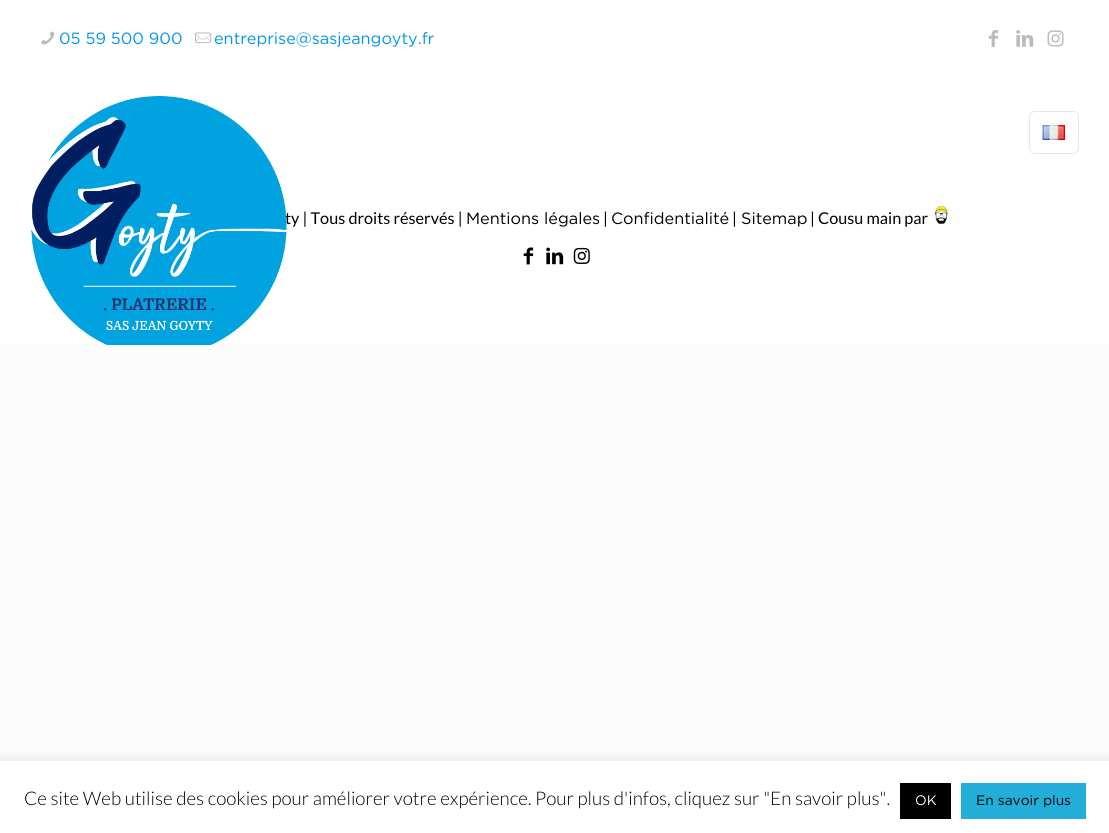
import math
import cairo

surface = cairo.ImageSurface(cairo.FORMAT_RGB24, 1109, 833)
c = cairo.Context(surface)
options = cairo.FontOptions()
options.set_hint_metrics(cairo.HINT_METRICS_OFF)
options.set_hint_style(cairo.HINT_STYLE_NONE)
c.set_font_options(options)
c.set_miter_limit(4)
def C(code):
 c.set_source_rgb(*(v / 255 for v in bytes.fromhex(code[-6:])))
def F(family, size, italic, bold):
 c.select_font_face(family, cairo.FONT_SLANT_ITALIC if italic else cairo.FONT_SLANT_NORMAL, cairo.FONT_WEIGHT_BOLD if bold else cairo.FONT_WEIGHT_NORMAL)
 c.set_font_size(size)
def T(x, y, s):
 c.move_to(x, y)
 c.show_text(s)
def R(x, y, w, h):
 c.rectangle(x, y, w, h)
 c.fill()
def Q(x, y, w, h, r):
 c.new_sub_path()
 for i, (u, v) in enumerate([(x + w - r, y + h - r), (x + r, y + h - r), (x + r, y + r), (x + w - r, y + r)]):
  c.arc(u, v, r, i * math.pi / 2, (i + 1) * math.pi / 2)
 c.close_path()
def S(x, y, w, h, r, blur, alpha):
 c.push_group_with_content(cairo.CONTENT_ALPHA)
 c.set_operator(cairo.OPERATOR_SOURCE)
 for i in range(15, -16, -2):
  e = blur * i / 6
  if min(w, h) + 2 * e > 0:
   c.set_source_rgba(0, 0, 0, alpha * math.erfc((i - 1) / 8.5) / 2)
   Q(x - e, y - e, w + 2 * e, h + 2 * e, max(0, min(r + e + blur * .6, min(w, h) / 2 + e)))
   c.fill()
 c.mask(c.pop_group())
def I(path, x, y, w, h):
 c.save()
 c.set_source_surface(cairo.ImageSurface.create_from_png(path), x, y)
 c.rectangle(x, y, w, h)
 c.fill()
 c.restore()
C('fcfcfc')
c.paint()
C('ffffff')
R(0,0,1109,190)
I('1.png',41,31,14,14)
F('Gotham',16.25,0,0)
C('0095eb')
T(59,44,'05 59 500 900')
I('2.png',195,32,17,12)
T(214,44,'entreprise@sasjeangoyty.fr')
I('3.png',988,30,11,17)
I('4.png',1016,30,18,17)
I('5.png',1047,30,17,17)
C('ffffff')
R(0,190,1109,155)
F('Lato',16.25,0,0)
C('000000')
T(285,224,'ty | Tous droits réservés |')
I('6.png',31,96,256,249)
Q(1029.5,111.5,49,42,5.5)
C('e6e6e6')
c.set_line_width(1)
c.stroke()
I('7.png',1042,125,23,15)
F('Gotham',16.25,0,0)
C('000000')
T(466,224,'Mentions légales')
F('Lato',16.25,0,0)
T(603,224,'|')
F('Gotham',16.25,0,0)
T(611,224,'Confidentialité')
F('Lato',16.25,0,0)
T(732,224,'|')
F('Gotham',16.25,0,0)
T(741,224,'Sitemap')
F('Lato',16.25,0,0)
T(810,224,'| Cousu main par')
I('8.png',935,206,13,18)
I('9.png',523,247,11,18)
I('10.png',546,247,18,18)
I('11.png',573,247,17,17)
C('acabab')
S(0,760,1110,73,0,6,.3)
C('ffffff')
R(0,761,1109,72)
F('Lato Light',18.75,0,0)
C('000000')
T(24,805,'Ce site Web utilise des cookies pour améliorer votre expérience. Pour plus d\'infos, cliquez sur "En savoir plus".')
R(900,783,51,36)
F('Gotham',13.75,0,0)
C('ffffff')
T(915,805,'OK')
C('22aed8')
R(961,783,125,36)
C('000000')
T(976,805,'En savoir plus')
surface.write_to_png('o.png')
